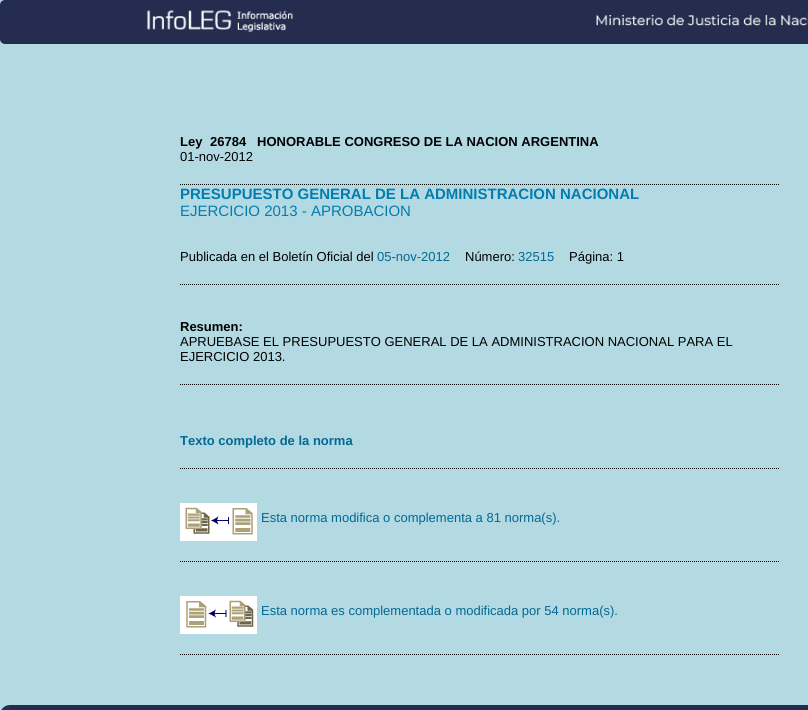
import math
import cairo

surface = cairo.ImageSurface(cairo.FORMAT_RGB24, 808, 710)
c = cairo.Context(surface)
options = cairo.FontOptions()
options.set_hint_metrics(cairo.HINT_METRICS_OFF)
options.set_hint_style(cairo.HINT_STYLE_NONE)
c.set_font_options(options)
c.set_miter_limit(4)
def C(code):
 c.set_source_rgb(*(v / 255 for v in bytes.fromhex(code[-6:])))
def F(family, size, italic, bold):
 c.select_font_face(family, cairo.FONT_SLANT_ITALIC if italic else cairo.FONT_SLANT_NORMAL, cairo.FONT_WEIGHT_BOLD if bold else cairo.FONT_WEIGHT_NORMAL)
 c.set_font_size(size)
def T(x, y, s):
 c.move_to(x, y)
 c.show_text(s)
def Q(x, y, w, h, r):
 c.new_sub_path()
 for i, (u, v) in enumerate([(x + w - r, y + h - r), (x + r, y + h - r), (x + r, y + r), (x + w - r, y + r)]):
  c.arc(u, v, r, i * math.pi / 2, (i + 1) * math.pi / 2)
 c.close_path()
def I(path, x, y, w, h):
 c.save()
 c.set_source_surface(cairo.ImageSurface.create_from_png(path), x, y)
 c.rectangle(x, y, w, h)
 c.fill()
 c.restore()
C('b3d9e2')
c.paint()
C('242c4f')
Q(0,0,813,44,5)
c.fill()
I('1.png',147,10,661,23)
c.new_path()
c.move_to(180,184.5)
c.line_to(780,184.5)
C('000000')
c.set_line_width(1)
c.set_dash([1,1])
c.stroke()
F('Liberation Sans',13,0,1)
T(180,146,'Ley')
T(210,146,'26784')
T(257,146,'HONORABLE CONGRESO DE LA NACION ARGENTINA')
F('Liberation Sans',13,0,0)
T(180,161,'01-nov-2012')
F('Liberation Sans',15,0,1)
C('037db0')
T(180,199,'PRESUPUESTO GENERAL DE LA ADMINISTRACION NACIONAL')
F('Liberation Sans',15,0,0)
T(180,216,'EJERCICIO 2013 - APROBACION')
c.new_path()
c.move_to(180,284.5)
c.line_to(780,284.5)
C('000000')
c.stroke()
F('Liberation Sans',13,0,0)
T(180,261,'Publicada en el Boletín Oficial del')
C('016994')
T(377,261,'05-nov-2012')
C('000000')
T(465,261,'Número:')
C('016994')
T(518,261,'32515')
C('000000')
T(569,261,'Página: 1')
c.new_path()
c.move_to(180,384.5)
c.line_to(780,384.5)
c.stroke()
F('Liberation Sans',13,0,1)
T(180,331,'Resumen:')
F('Liberation Sans',13,0,0)
T(180,346,'APRUEBASE EL PRESUPUESTO GENERAL DE LA ADMINISTRACION NACIONAL PARA EL')
T(180,361,'EJERCICIO 2013.')
c.new_path()
c.move_to(180,468.5)
c.line_to(780,468.5)
c.stroke()
F('Liberation Sans',13,0,1)
C('016994')
T(180,445,'Texto completo de la norma')
c.new_path()
c.move_to(180,561.5)
c.line_to(780,561.5)
C('000000')
c.stroke()
I('2.png',180,503,77,38)
F('Liberation Sans',13,0,0)
C('016994')
T(261,522,'Esta norma modifica o complementa a 81 norma(s).')
c.new_path()
c.move_to(180,654.5)
c.line_to(780,654.5)
C('000000')
c.stroke()
I('3.png',180,596,77,38)
C('016994')
T(261,615,'Esta norma es complementada o modificada por 54 norma(s).')
C('242c4f')
Q(0,705,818,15,10)
c.fill()
surface.write_to_png('o.png')
